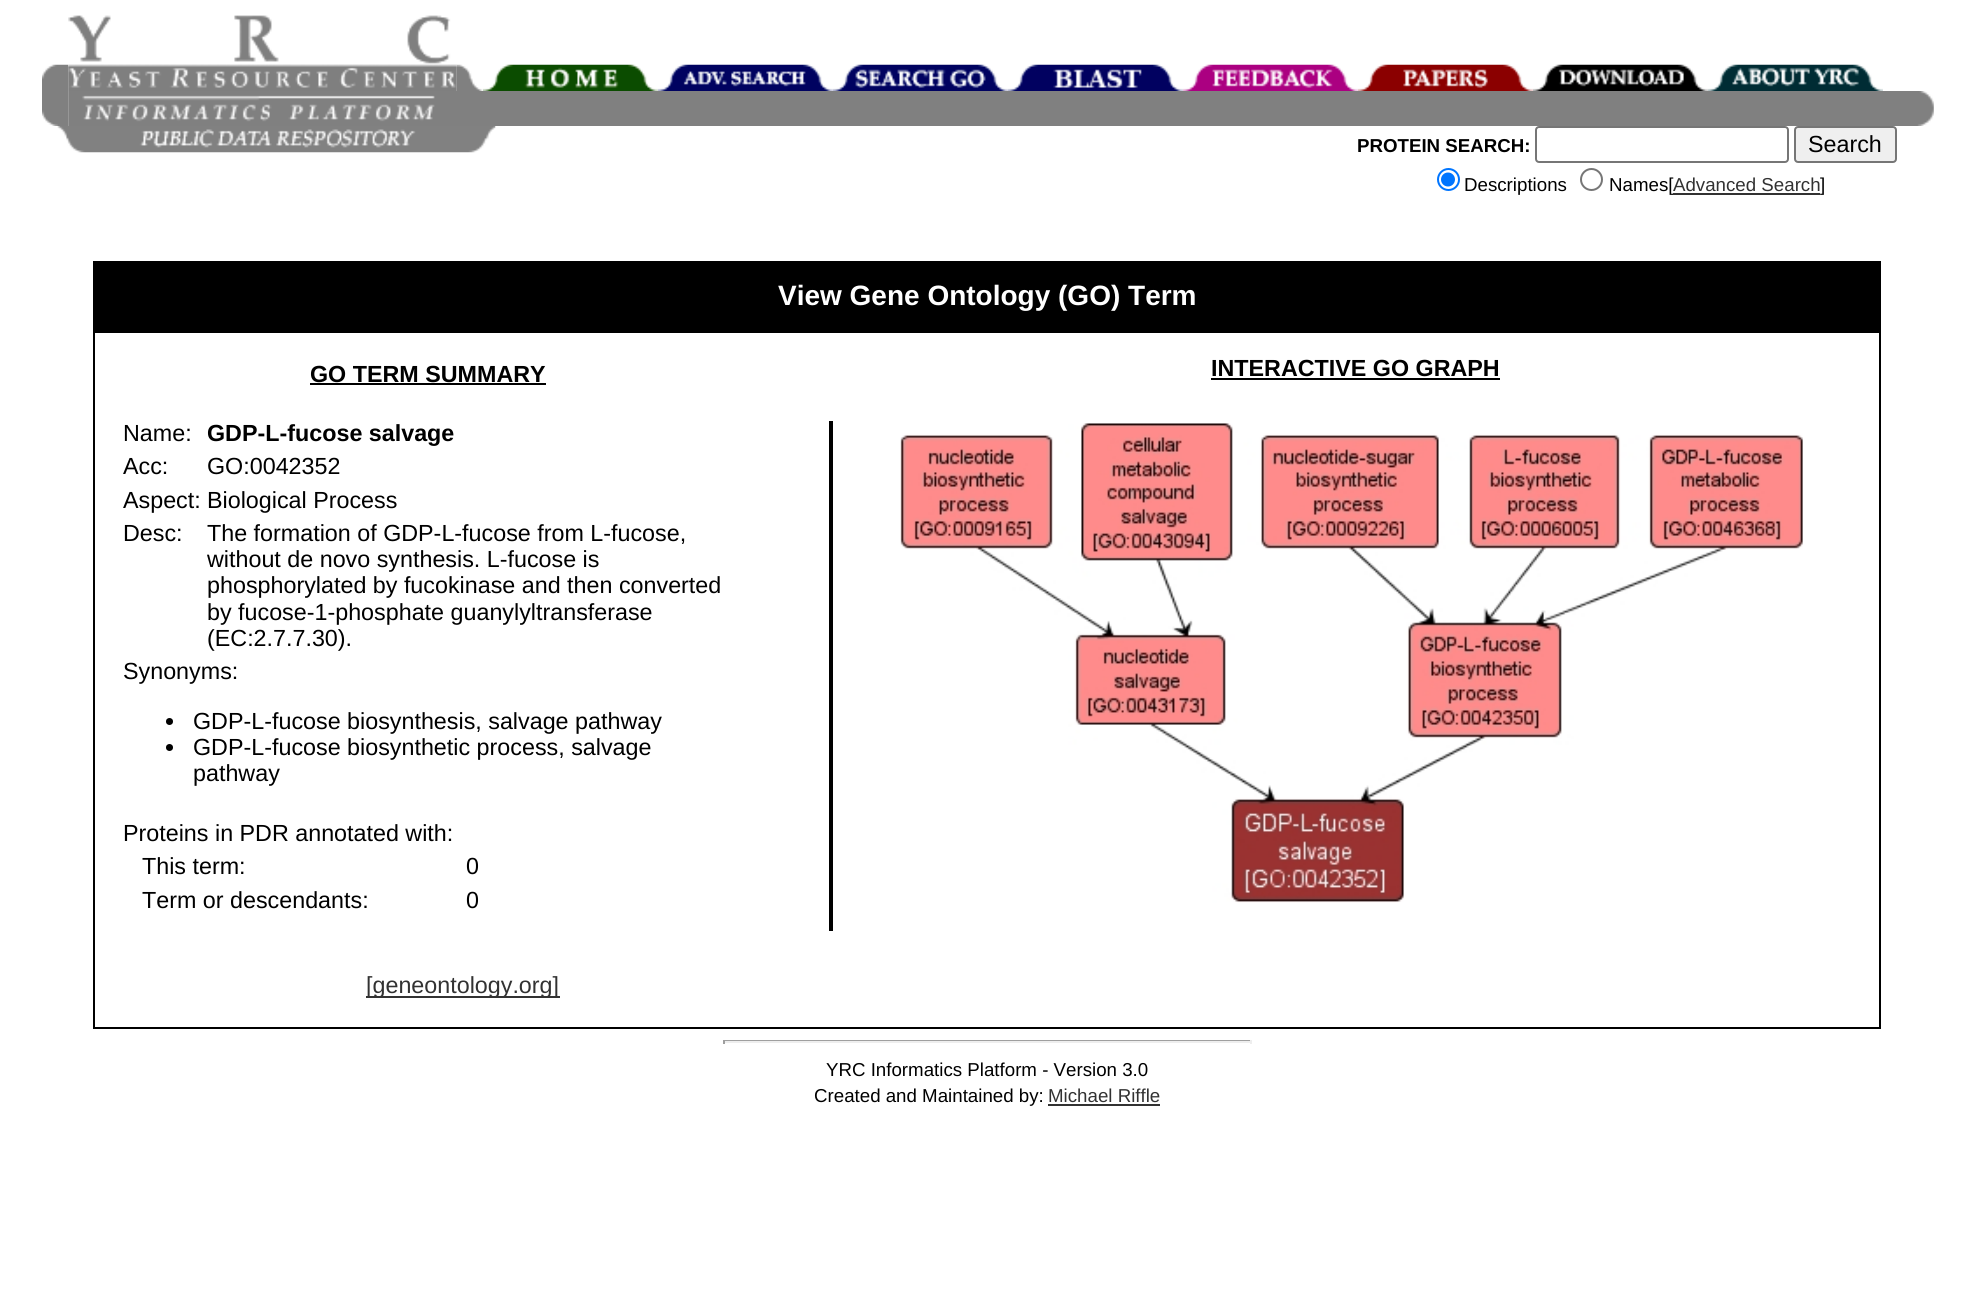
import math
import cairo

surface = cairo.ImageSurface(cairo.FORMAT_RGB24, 1974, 1292)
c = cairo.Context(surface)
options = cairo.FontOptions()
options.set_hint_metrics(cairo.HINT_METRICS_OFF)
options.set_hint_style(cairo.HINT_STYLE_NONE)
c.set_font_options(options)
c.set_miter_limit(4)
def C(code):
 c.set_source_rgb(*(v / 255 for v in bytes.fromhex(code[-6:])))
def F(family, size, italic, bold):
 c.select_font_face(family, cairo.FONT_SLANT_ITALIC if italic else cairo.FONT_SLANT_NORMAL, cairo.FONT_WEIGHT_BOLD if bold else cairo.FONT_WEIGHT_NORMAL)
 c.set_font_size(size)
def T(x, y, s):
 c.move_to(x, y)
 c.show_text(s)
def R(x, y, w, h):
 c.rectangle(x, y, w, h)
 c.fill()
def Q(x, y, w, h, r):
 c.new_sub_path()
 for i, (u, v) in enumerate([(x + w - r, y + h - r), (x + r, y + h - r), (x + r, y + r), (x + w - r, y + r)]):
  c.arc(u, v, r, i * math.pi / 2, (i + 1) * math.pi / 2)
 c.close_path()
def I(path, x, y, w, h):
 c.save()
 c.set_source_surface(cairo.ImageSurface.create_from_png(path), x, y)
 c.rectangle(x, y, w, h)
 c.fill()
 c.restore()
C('ffffff')
c.paint()
I('1.png',42,64,27,27)
I('2.png',68,15,389,76)
I('3.png',456,64,27,27)
I('4.png',483,64,175,27)
I('5.png',658,64,175,27)
I('6.png',833,64,175,27)
I('7.png',1008,64,175,27)
I('8.png',1183,64,175,27)
I('9.png',1358,64,175,27)
I('10.png',1533,64,175,27)
I('11.png',1708,64,175,27)
I('12.png',42,91,27,35)
I('13.png',68,91,387,35)
C('808080')
R(455,91,1453,35)
I('14.png',1908,91,26,35)
I('15.png',57,126,439,27)
F('Liberation Sans',18.7,0,1)
C('000000')
T(1357,152,'PROTEIN SEARCH:')
Q(1536,127,252,35,3)
C('767676')
c.stroke()
C('efefef')
Q(1795,127,101,35,3)
c.fill_preserve()
C('767676')
c.stroke()
F('Liberation Sans',23.3,0,0)
C('000000')
T(1808,152,'Search')
c.new_path()
c.arc(1448.5,179.5,10.5,0,2 * math.pi)
C('0075ff')
c.stroke()
c.arc(1448,179.5,7,0,2 * math.pi)
c.fill()
F('Liberation Sans',18.7,0,0)
C('000000')
T(1464,191,'Descriptions')
c.new_path()
c.arc(1591.5,179.5,10.5,0,2 * math.pi)
C('767676')
c.stroke()
C('000000')
T(1609,191,'Names[')
C('323232')
T(1673,191,'Advanced Search')
R(1673,193,147,2)
C('000000')
T(1820,191,']')
R(93,261,1788,70)
F('Liberation Sans',28,0,1)
C('ffffff')
T(778,305,'View Gene Ontology (GO) Term')
c.rectangle(94,332,1786,696)
C('000000')
c.stroke()
F('Liberation Sans',23.3,0,1)
T(310,382,'GO TERM SUMMARY')
R(310,383,236,2)
F('Liberation Sans',23.3,0,0)
T(123,441,'Name:')
F('Liberation Sans',23.3,0,1)
T(207,441,'GDP-L-fucose salvage')
F('Liberation Sans',23.3,0,0)
T(123,474,'Acc:')
T(207,474,'GO:0042352')
T(123,508,'Aspect:')
T(207,508,'Biological Process')
T(123,541,'Desc:')
T(207,541,'The formation of GDP-L-fucose from L-fucose,')
T(207,567,'without de novo synthesis. L-fucose is')
T(207,593,'phosphorylated by fucokinase and then converted')
T(207,620,'by fucose-1-phosphate guanylyltransferase')
T(207,646,'(EC:2.7.7.30).')
T(123,679,'Synonyms:')
c.new_path()
c.arc(169.5,721.5,3.5,0,2 * math.pi)
c.fill()
T(193,729,'GDP-L-fucose biosynthesis, salvage pathway')
c.new_path()
c.arc(169.5,747.5,3.5,0,2 * math.pi)
c.fill()
T(193,755,'GDP-L-fucose biosynthetic process, salvage')
T(193,781,'pathway')
T(123,841,'Proteins in PDR annotated with:')
T(142,874,'This term:')
T(466,874,'0')
T(142,908,'Term or descendants:')
T(466,908,'0')
C('323232')
R(366,996,194,2)
T(366,993,'[geneontology.org]')
C('000000')
R(829,421,4,510)
F('Liberation Sans',23.3,0,1)
T(1211,376,'INTERACTIVE GO GRAPH')
R(1211,378,289,2)
I('16.png',900,423,903,480)
C('9f9f9f')
R(723,1040,528,1)
C('eeeeee')
R(1250,1040,2,4)
R(723,1041,528,2)
C('9f9f9f')
R(723,1040,2,4)
F('Liberation Sans',18.7,0,0)
C('000000')
T(826,1076,'YRC Informatics Platform - Version 3.0')
T(814,1102,'Created and Maintained by:')
C('323232')
T(1048,1102,'Michael Riffle')
R(1048,1104,112,2)
surface.write_to_png('o.png')
